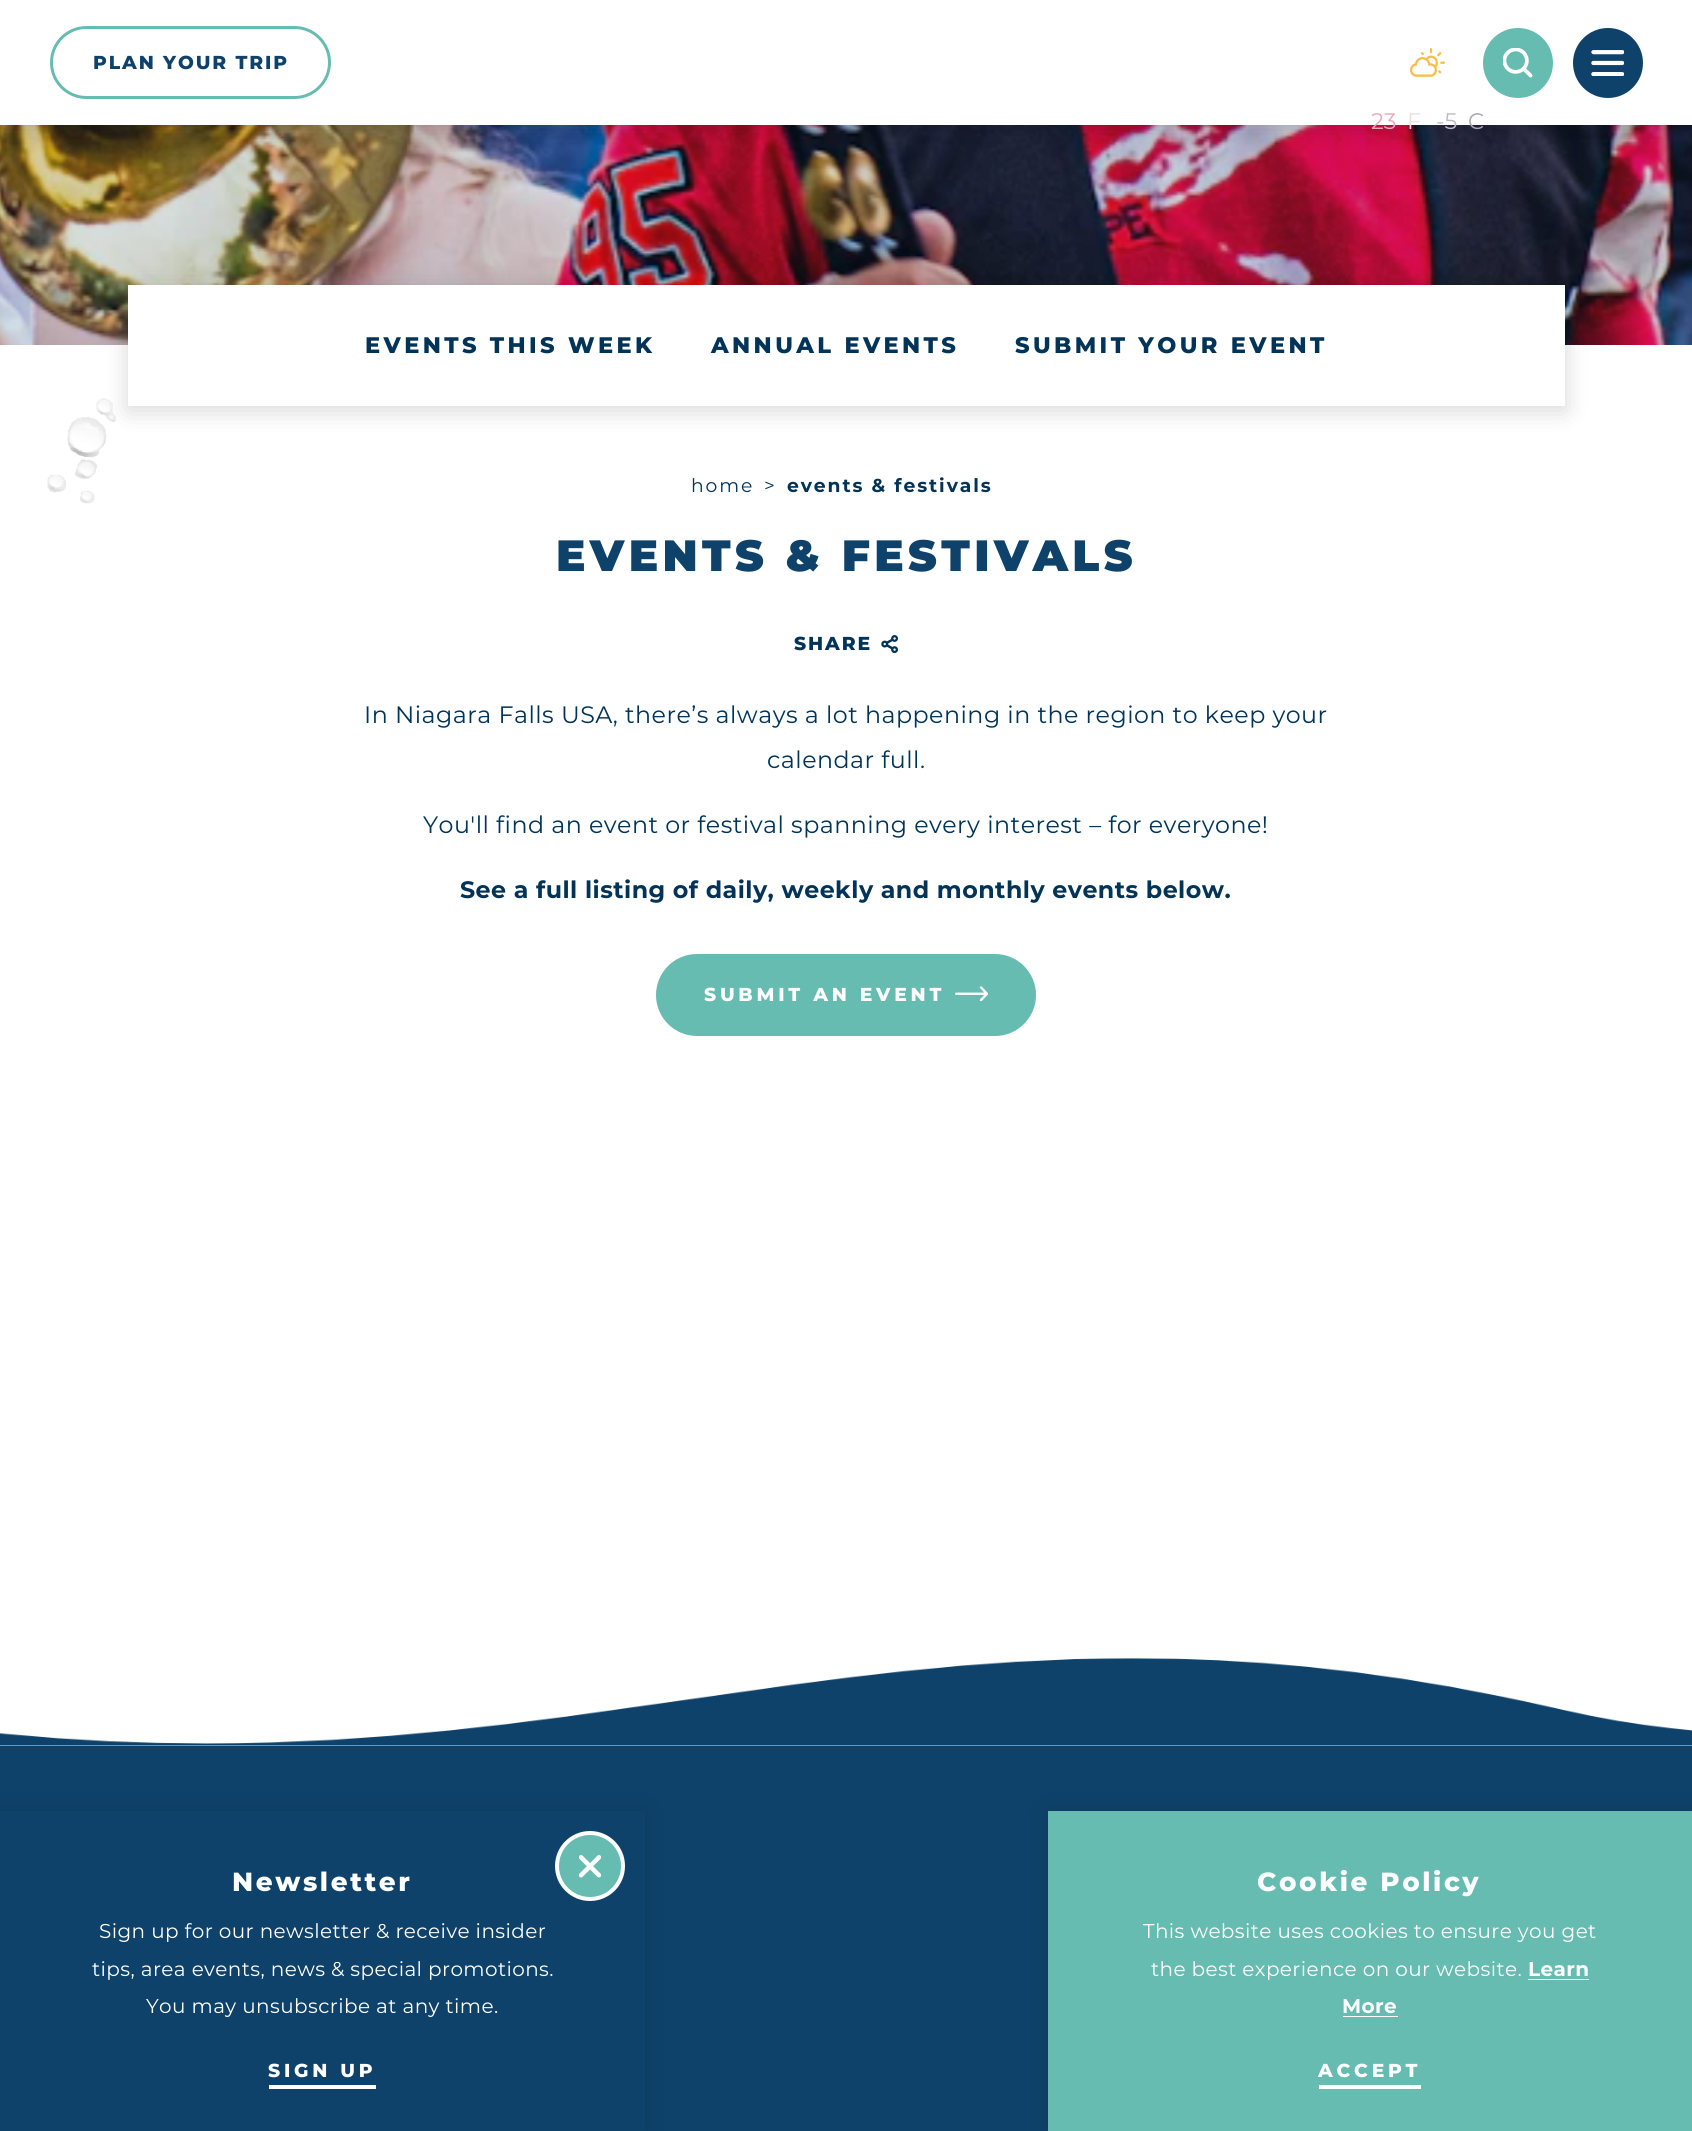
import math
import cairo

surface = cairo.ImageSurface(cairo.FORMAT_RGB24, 1692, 2131)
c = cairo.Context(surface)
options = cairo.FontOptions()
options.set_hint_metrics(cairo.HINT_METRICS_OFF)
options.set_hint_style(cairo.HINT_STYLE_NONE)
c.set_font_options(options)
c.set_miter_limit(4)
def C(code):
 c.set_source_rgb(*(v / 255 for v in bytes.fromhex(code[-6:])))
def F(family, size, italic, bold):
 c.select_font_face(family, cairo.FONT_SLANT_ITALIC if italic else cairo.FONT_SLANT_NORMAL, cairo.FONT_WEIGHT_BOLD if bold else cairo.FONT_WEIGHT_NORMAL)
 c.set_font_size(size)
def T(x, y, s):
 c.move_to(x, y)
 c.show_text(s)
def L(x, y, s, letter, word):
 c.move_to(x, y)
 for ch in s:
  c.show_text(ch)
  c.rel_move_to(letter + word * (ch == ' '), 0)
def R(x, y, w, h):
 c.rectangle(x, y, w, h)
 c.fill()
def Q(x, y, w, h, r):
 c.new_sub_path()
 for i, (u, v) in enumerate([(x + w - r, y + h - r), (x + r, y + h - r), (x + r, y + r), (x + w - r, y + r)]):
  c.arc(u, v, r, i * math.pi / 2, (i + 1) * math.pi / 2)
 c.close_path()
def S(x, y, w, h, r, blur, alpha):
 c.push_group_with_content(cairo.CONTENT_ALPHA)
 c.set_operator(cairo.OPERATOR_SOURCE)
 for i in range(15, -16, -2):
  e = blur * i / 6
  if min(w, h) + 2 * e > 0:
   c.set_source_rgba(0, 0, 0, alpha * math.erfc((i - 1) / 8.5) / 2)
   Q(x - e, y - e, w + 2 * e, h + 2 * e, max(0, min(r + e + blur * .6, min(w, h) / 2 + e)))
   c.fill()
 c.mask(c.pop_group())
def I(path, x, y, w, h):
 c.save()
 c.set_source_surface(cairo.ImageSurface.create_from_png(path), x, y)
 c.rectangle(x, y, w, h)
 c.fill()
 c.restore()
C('ffffff')
c.paint()
I('4.png',0,125,1692,220)
C('000000')
S(0,4,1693,125,0,12.5,.16)
C('ffffff')
R(0,0,1692,125)
Q(51.5,27.5,278,70,35)
C('66bcb0')
c.set_line_width(3)
c.stroke()
F('Montserrat ExtraBold',18.75,0,0)
C('0e426a')
L(93,69,'PLAN YOUR TRIP',1.9,0)
C('66bcb0')
c.new_path()
c.arc(1518,63,35,0,2 * math.pi)
c.fill()
I('1.png',1503,48,30,30)
C('0e426a')
c.arc(1608,63,35,0,2 * math.pi)
c.fill()
I('2.png',1591,50,33,26)
I('3.png',1410,48,35,29)
F('Montserrat',22.5,0,0)
C('e7a9bb')
T(1371,129,'23')
C('eedee1')
T(1407,129,'F')
C('bbbbc2')
T(1436,129,'-5')
C('a8a8b0')
T(1468,129,'C')
I('6.png',67,417,40,41)
I('5.png',96,398,20,24)
C('000000')
S(128,289,1437,121,0,12.5,.16)
C('ffffff')
R(128,285,1437,121)
F('Montserrat ExtraBold',22.5,0,0)
C('003358')
L(365,353,'EVENTS THIS WEEK',3.4,0)
L(711,353,'ANNUAL EVENTS',3.4,0)
L(1015,353,'SUBMIT YOUR EVENT',3.4,0)
I('7.png',75,459,22,20)
I('8.png',47,474,19,19)
I('9.png',80,490,15,14)
F('Montserrat',18.75,0,0)
L(691,492,'home',1.9,0)
L(764,492,'>',1.9,0)
F('Montserrat',18.75,0,1)
L(787,492,'events & festivals',1.9,0)
F('Montserrat Black',43.75,0,0)
C('0e426a')
L(556,571,'EVENTS & FESTIVALS',4.4,0)
F('Montserrat ExtraBold',18.75,0,0)
C('003358')
L(794,650,'SHARE',1.9,0)
I('10.png',881,635,17,19)
F('Montserrat',23.75,0,0)
L(364,723,'In Niagara Falls USA, there’s always a lot happening in the region to keep your',.47,0)
L(767,768,'calendar full.',.47,0)
L(423,833,'You\'ll find an event or festival spanning every interest – for everyone!',.47,0)
F('Montserrat',23.75,0,1)
L(460,898,'See a full listing of daily, weekly and monthly events below.',.47,0)
C('66bcb0')
Q(657.5,955.5,377,79,39.5)
c.fill_preserve()
c.stroke()
F('Montserrat ExtraBold',18.75,0,0)
C('ffffff')
L(704,1001,'SUBMIT AN EVENT',3.75,0)
I('11.png',955,986,33,15)
C('0e426a')
R(0,1746,1692,385)
I('12.png',0,1658,1692,88)
C('000000')
S(0,1811,645,320,0,12.5,.1)
C('0e426a')
R(0,1811,645,320)
F('Montserrat ExtraBold',26.25,0,0)
C('ffffff')
L(232,1891,'Newsletter',2.6,0)
F('Montserrat',20,0,0)
L(99,1938,'Sign up for our newsletter & receive insider',.4,0)
L(92,1976,'tips, area events, news & special promotions.',.4,0)
L(146,2013,'You may unsubscribe at any time.',.4,0)
F('Montserrat ExtraBold',18.75,0,0)
L(268,2077,'SIGN UP',3.75,0)
R(269,2085,107,4)
C('66bcb0')
c.new_path()
c.arc(590,1866,33,0,2 * math.pi)
c.fill_preserve()
C('ffffff')
c.set_line_width(4)
c.stroke()
I('13.png',579,1855,22,23)
C('000000')
S(1048,1811,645,320,0,12.5,.1)
C('66bcb0')
R(1048,1811,644,320)
F('Montserrat ExtraBold',26.25,0,0)
C('ffffff')
L(1257,1891,'Cookie Policy',2.6,0)
F('Montserrat',20,0,0)
L(1143,1938,'This website uses cookies to ensure you get',.4,0)
L(1151,1976,'the best experience on our website.',.4,0)
F('Montserrat',20,0,1)
L(1528,1976,'Learn',.4,0)
R(1528,1979,61,1)
L(1342,2013,'More',.4,0)
R(1343,2016,55,1)
F('Montserrat ExtraBold',18.75,0,0)
L(1318,2077,'ACCEPT',3.75,0)
R(1319,2085,102,4)
surface.write_to_png('o.png')
